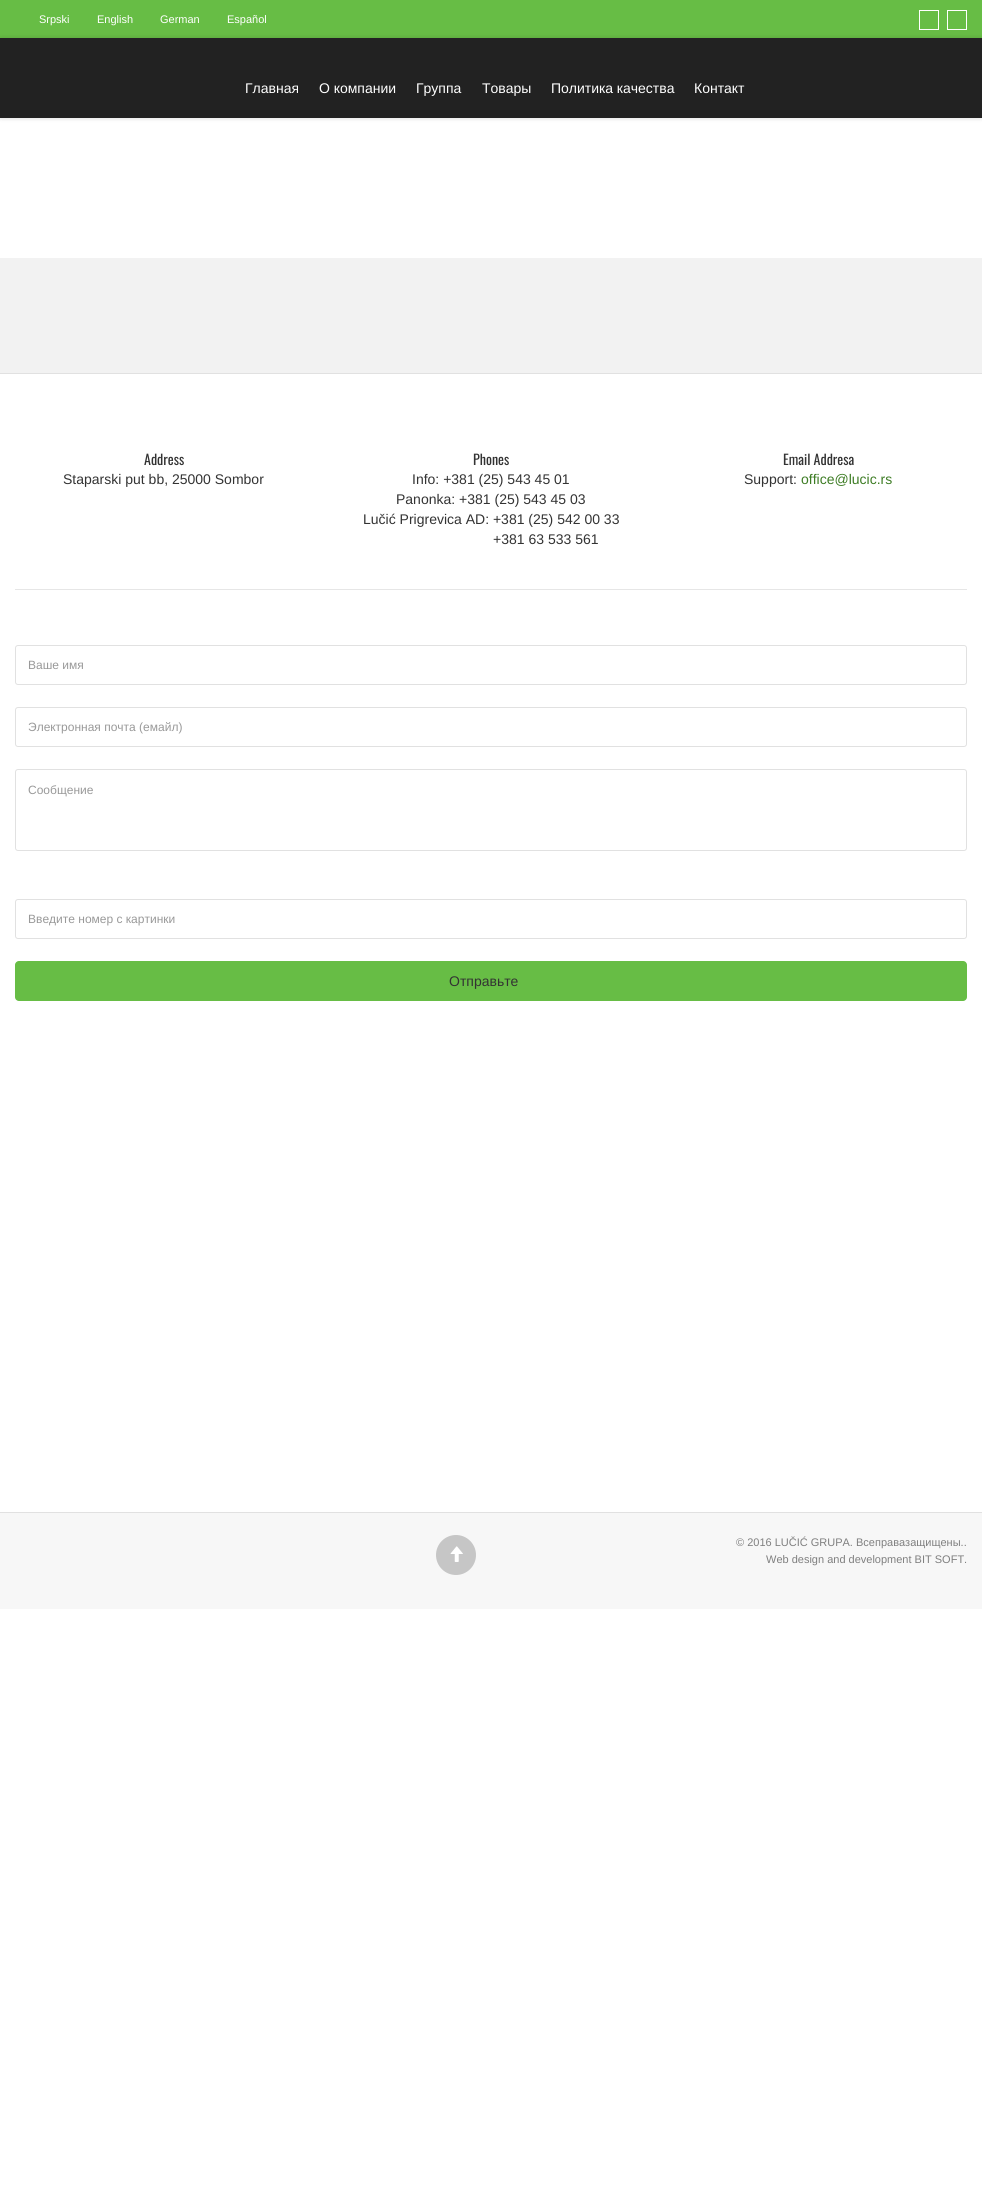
import math
import cairo

surface = cairo.ImageSurface(cairo.FORMAT_RGB24, 982, 2207)
c = cairo.Context(surface)
options = cairo.FontOptions()
options.set_hint_metrics(cairo.HINT_METRICS_OFF)
options.set_hint_style(cairo.HINT_STYLE_NONE)
c.set_font_options(options)
c.set_miter_limit(4)
def C(code):
 c.set_source_rgb(*(v / 255 for v in bytes.fromhex(code[-6:])))
def F(family, size, italic, bold):
 c.select_font_face(family, cairo.FONT_SLANT_ITALIC if italic else cairo.FONT_SLANT_NORMAL, cairo.FONT_WEIGHT_BOLD if bold else cairo.FONT_WEIGHT_NORMAL)
 c.set_font_size(size)
def T(x, y, s):
 c.move_to(x, y)
 c.show_text(s)
def R(x, y, w, h):
 c.rectangle(x, y, w, h)
 c.fill()
def Q(x, y, w, h, r):
 c.new_sub_path()
 for i, (u, v) in enumerate([(x + w - r, y + h - r), (x + r, y + h - r), (x + r, y + r), (x + w - r, y + r)]):
  c.arc(u, v, r, i * math.pi / 2, (i + 1) * math.pi / 2)
 c.close_path()
def S(x, y, w, h, r, blur, alpha):
 c.push_group_with_content(cairo.CONTENT_ALPHA)
 c.set_operator(cairo.OPERATOR_SOURCE)
 for i in range(15, -16, -2):
  e = blur * i / 6
  if min(w, h) + 2 * e > 0:
   c.set_source_rgba(0, 0, 0, alpha * math.erfc((i - 1) / 8.5) / 2)
   Q(x - e, y - e, w + 2 * e, h + 2 * e, max(0, min(r + e + blur * .6, min(w, h) / 2 + e)))
   c.fill()
 c.mask(c.pop_group())
def I(path, x, y, w, h):
 c.save()
 c.set_source_surface(cairo.ImageSurface.create_from_png(path), x, y)
 c.rectangle(x, y, w, h)
 c.fill()
 c.restore()
C('ffffff')
c.paint()
C('67bd45')
R(0,0,982,38)
F('Liberation Sans',11,0,0)
C('ffffff')
T(39,23,'Srpski')
T(97,23,'English')
T(160,23,'German')
T(227,23,'Español')
c.rectangle(919.5,10.5,19,19)
c.set_line_width(1)
c.stroke()
c.rectangle(947.5,10.5,19,19)
c.stroke()
C('000000')
S(0,38,982,80,0,2.5,.15)
C('222222')
R(0,38,982,80)
F('Liberation Sans',14,0,0)
C('ffffff')
T(245,93,'Главная')
T(319,93,'О компании')
T(416,93,'Группа')
T(482,93,'Tовары')
T(551,93,'Политика качества')
T(694,93,'Контакт')
C('f2f2f2')
R(0,258,982,115)
C('e1e1e1')
R(0,373,982,1)
F('Oswald',14,0,0)
C('333333')
T(144,465,'Address')
F('Liberation Sans',14,0,0)
T(63,484,'Staparski put bb, 25000 Sombor')
F('Oswald',14,0,0)
T(473,465,'Phones')
F('Liberation Sans',14,0,0)
T(412,484,'Info: +381 (25) 543 45 01')
T(396,504,'Panonka: +381 (25) 543 45 03')
T(363,524,'Lučić Prigrevica AD: +381 (25) 542 00 33')
T(493,544,'+381 63 533 561')
F('Oswald',14,0,0)
T(783,465,'Email Addresa')
F('Liberation Sans',14,0,0)
T(744,484,'Support:')
C('3d7c24')
T(801,484,'office@lucic.rs')
C('e6e6e6')
R(15,589,952,1)
Q(15.5,645.5,951,39,2.5)
C('e1e1e1')
c.stroke()
F('Liberation Sans',12,0,0)
C('999999')
T(28,669,'Ваше имя')
Q(15.5,707.5,951,39,2.5)
C('e1e1e1')
c.stroke()
C('999999')
T(28,731,'Электронная почта (емайл)')
Q(15.5,769.5,951,81,2.5)
C('e1e1e1')
c.stroke()
C('999999')
T(28,794,'Сообщение')
Q(15.5,899.5,951,39,2.5)
C('e1e1e1')
c.stroke()
C('999999')
T(28,923,'Введите номер с картинки')
C('67bd45')
Q(15,961,952,40,4)
c.fill()
F('Liberation Sans',14,0,0)
C('333333')
T(449,986,'Отправьте')
C('f7f7f7')
R(0,1513,982,96)
C('e1e1e1')
R(0,1512,982,1)
C('c6c6c6')
c.new_path()
c.arc(456,1555,20,0,2 * math.pi)
c.fill()
I('1.png',450,1546,13,16)
F('Liberation Sans',11,0,0)
C('7f7f7f')
T(736,1546,'© 2016 LUČIĆ GRUPA. Всеправазащищены..')
T(766,1563,'Web design and development BIT SOFT.')
surface.write_to_png('o.png')
